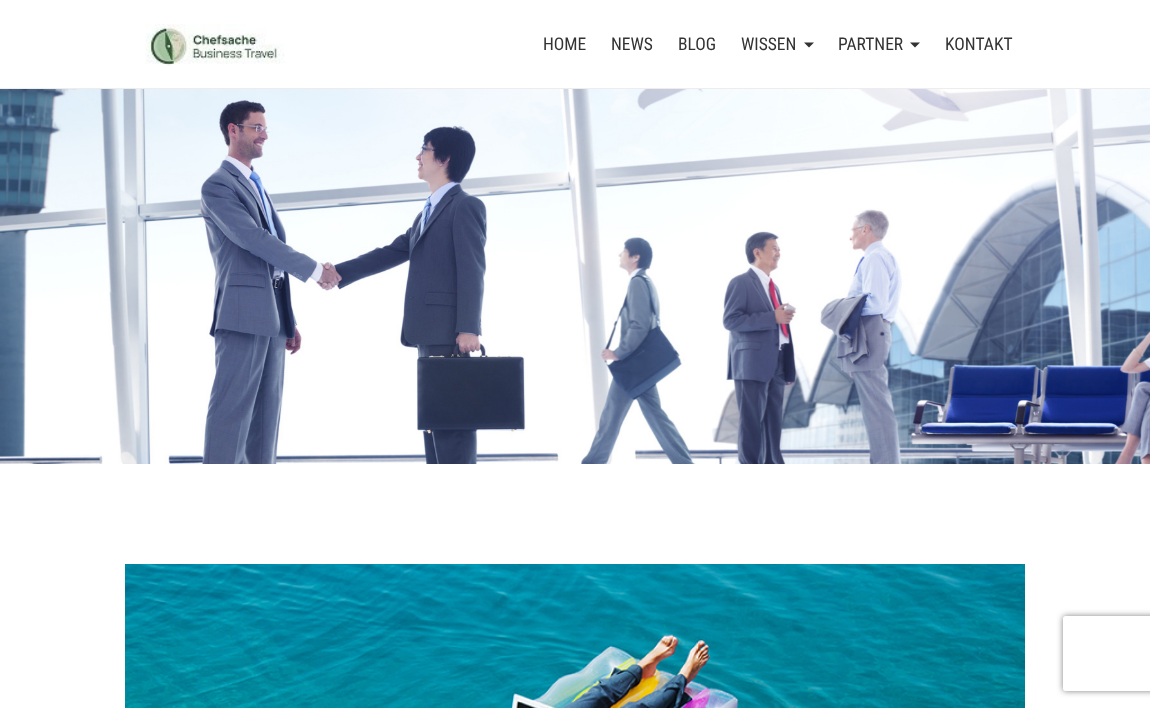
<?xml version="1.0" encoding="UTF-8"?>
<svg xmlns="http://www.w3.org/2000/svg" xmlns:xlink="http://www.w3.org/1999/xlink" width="1150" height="708">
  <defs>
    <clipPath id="clip1"><path d="M 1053 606 h 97 v 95 h -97 z m 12.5 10 h 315 c 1.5 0 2.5 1 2.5 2.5 v 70 c 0 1.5 -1 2.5 -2.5 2.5 h -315 c -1.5 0 -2.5 -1 -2.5 -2.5 v -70 c 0 -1.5 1 -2.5 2.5 -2.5 z" clip-rule="evenodd" /></clipPath>
  </defs>
  <rect width="100%" height="100%" fill="#ffffff" />
  <rect y="88" width="1150" height="1" fill="#ededed" />
  <image x="145" y="24" width="140" height="42" xlink:href="image1.png" />
  <path d="M 804 42.5 h 10 l -5 5 z" fill="#333333" />
  <path d="M 910 42.5 h 10 l -5 5 z" fill="#333333" />
  <image x="0" y="89" width="1150" height="375" xlink:href="image2.png" />
  <image x="125" y="564" width="900" height="144" xlink:href="image3.png" />
  <g clip-path="url(#clip1)">
    <rect x="1063" y="616" width="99" height="75" rx="2.5" fill="#808080" filter="blur(3px)" />
  </g>
  <text x="543" y="50" style="font-family: Roboto Condensed; font-size: 17.5px; fill: #333333">HOME</text>
  <text x="611" y="50" style="font-family: Roboto Condensed; font-size: 17.5px; fill: #333333">NEWS</text>
  <text x="678" y="50" style="font-family: Roboto Condensed; font-size: 17.5px; fill: #333333">BLOG</text>
  <text x="741" y="50" style="font-family: Roboto Condensed; font-size: 17.5px; fill: #333333">WISSEN</text>
  <text x="838" y="50" style="font-family: Roboto Condensed; font-size: 17.5px; fill: #333333">PARTNER</text>
  <text x="945" y="50" style="font-family: Roboto Condensed; font-size: 17.5px; fill: #333333">KONTAKT</text>
</svg>
